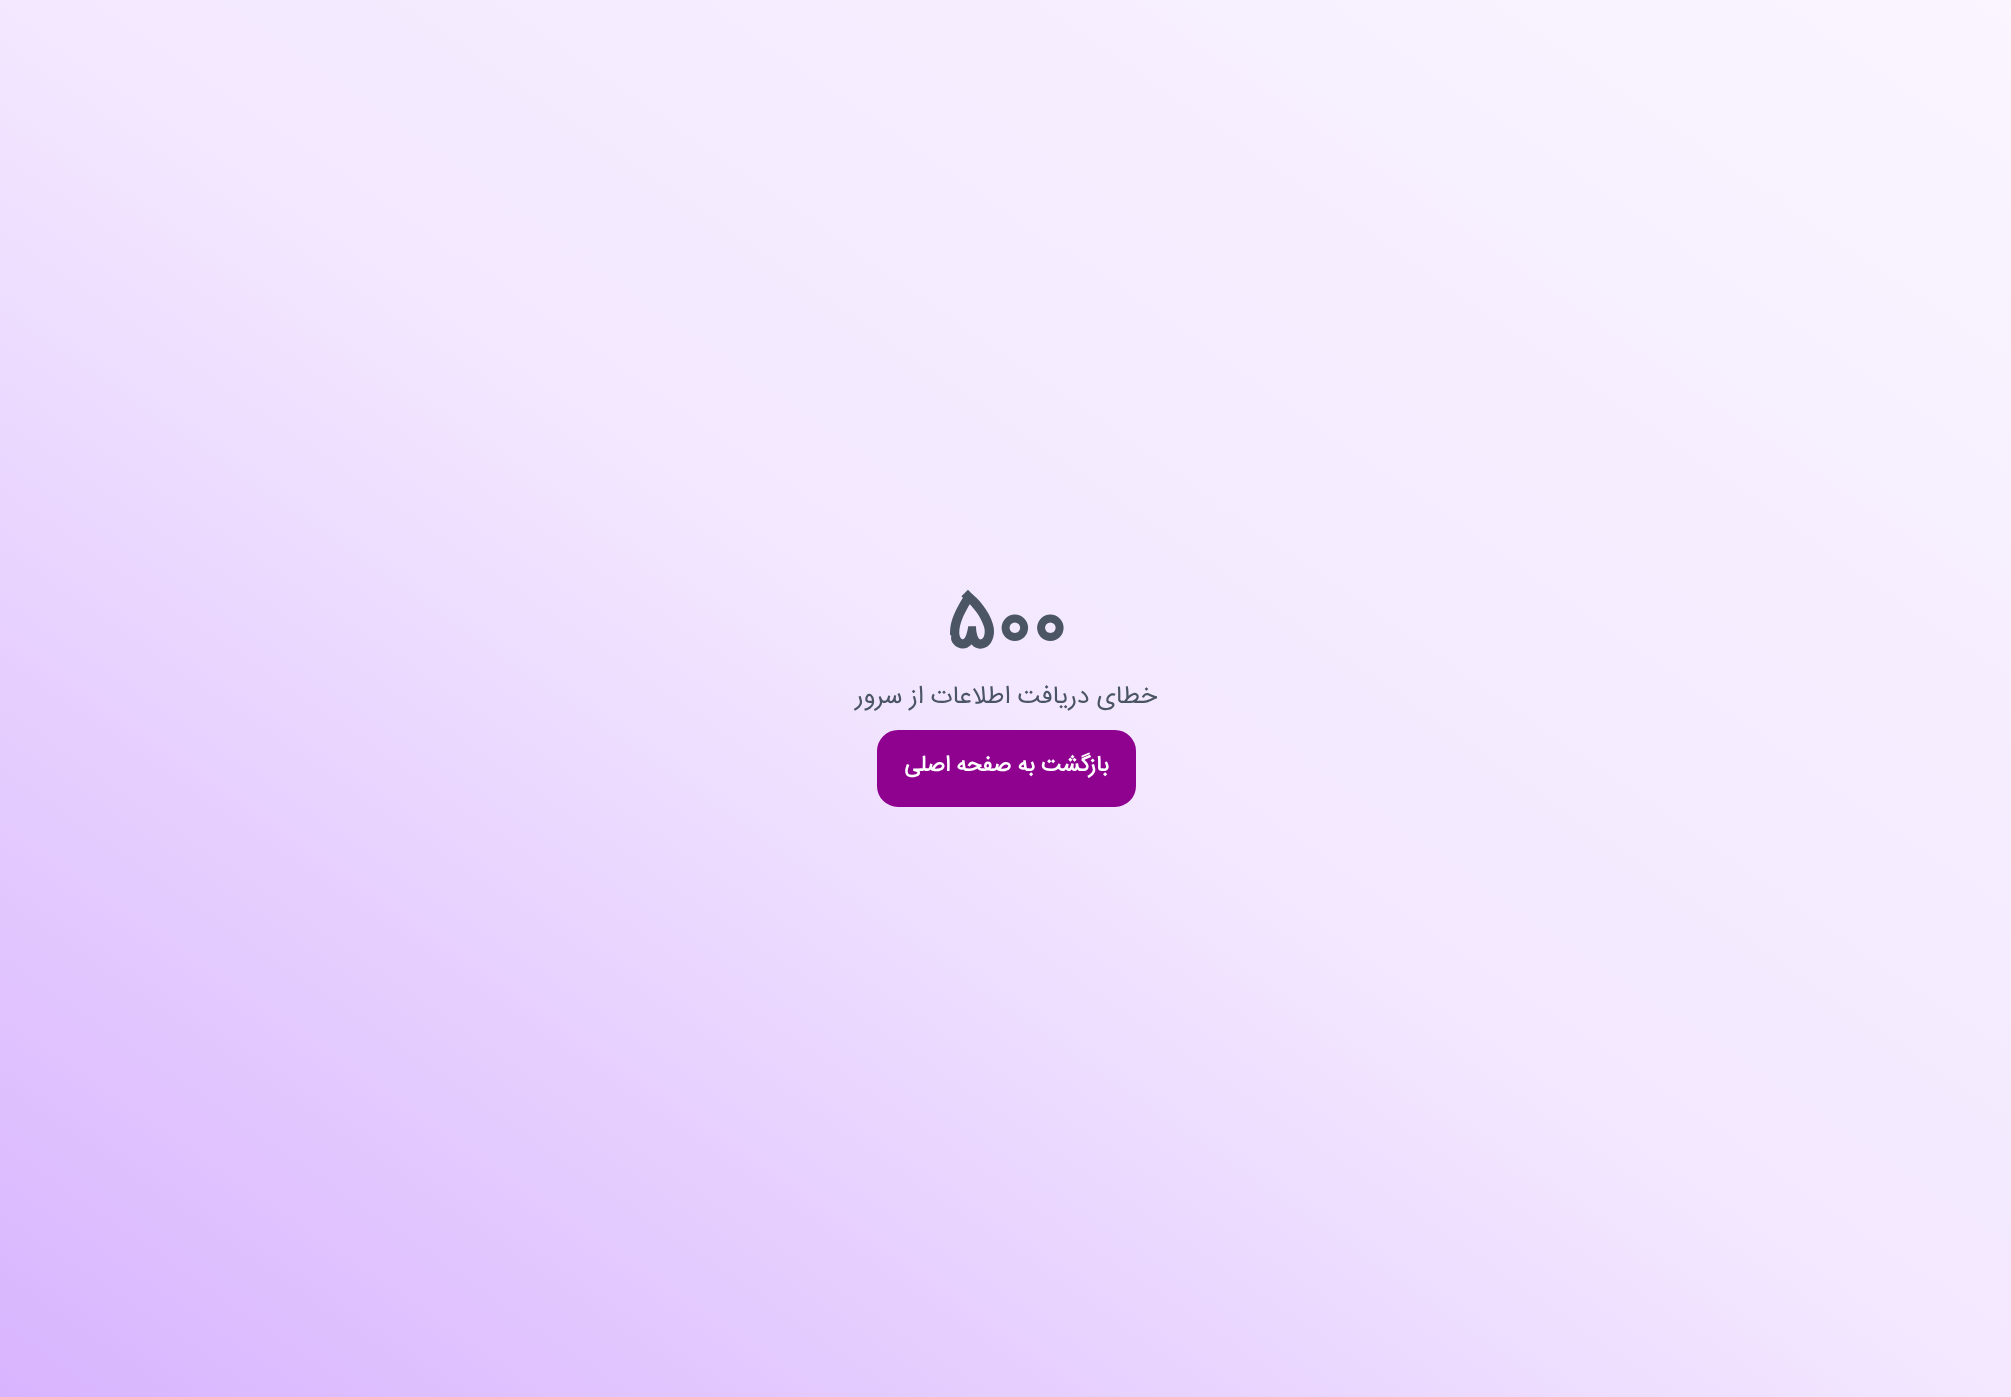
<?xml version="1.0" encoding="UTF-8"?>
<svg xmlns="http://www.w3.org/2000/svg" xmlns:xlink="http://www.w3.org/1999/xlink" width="2011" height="1397">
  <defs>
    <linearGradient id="g1" gradientUnits="userSpaceOnUse" x1="351" y1="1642" x2="1661" y2="-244"><stop offset="0" stop-color="#d8b4fe" /><stop offset="0.5" stop-color="#f3e8ff" /><stop offset="1" stop-color="#faf5ff" /></linearGradient>
  </defs>
  <rect width="100%" height="100%" fill="#ffffff" />
  <rect width="2011" height="1397" fill="url(#g1)" />
  <rect x="878" y="731" width="257" height="75" rx="20" fill="#8f018f" stroke="#8f018f" stroke-width="2" />
  <text x="946" y="646" style="font-family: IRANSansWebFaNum; font-size: 75px; font-weight: bold; fill: #4b5563">500</text>
  <text x="1157" y="703" style="font-family: IRANSansWebFaNum; font-size: 25.2px; direction: rtl; fill: #4b5563">خطای دریافت اطلاعات از سرور</text>
  <text x="1109" y="771" style="font-family: IRANSansWebFaNum; font-size: 22px; font-weight: bold; direction: rtl; fill: #ffffff">بازگشت به صفحه اصلی</text>
</svg>
